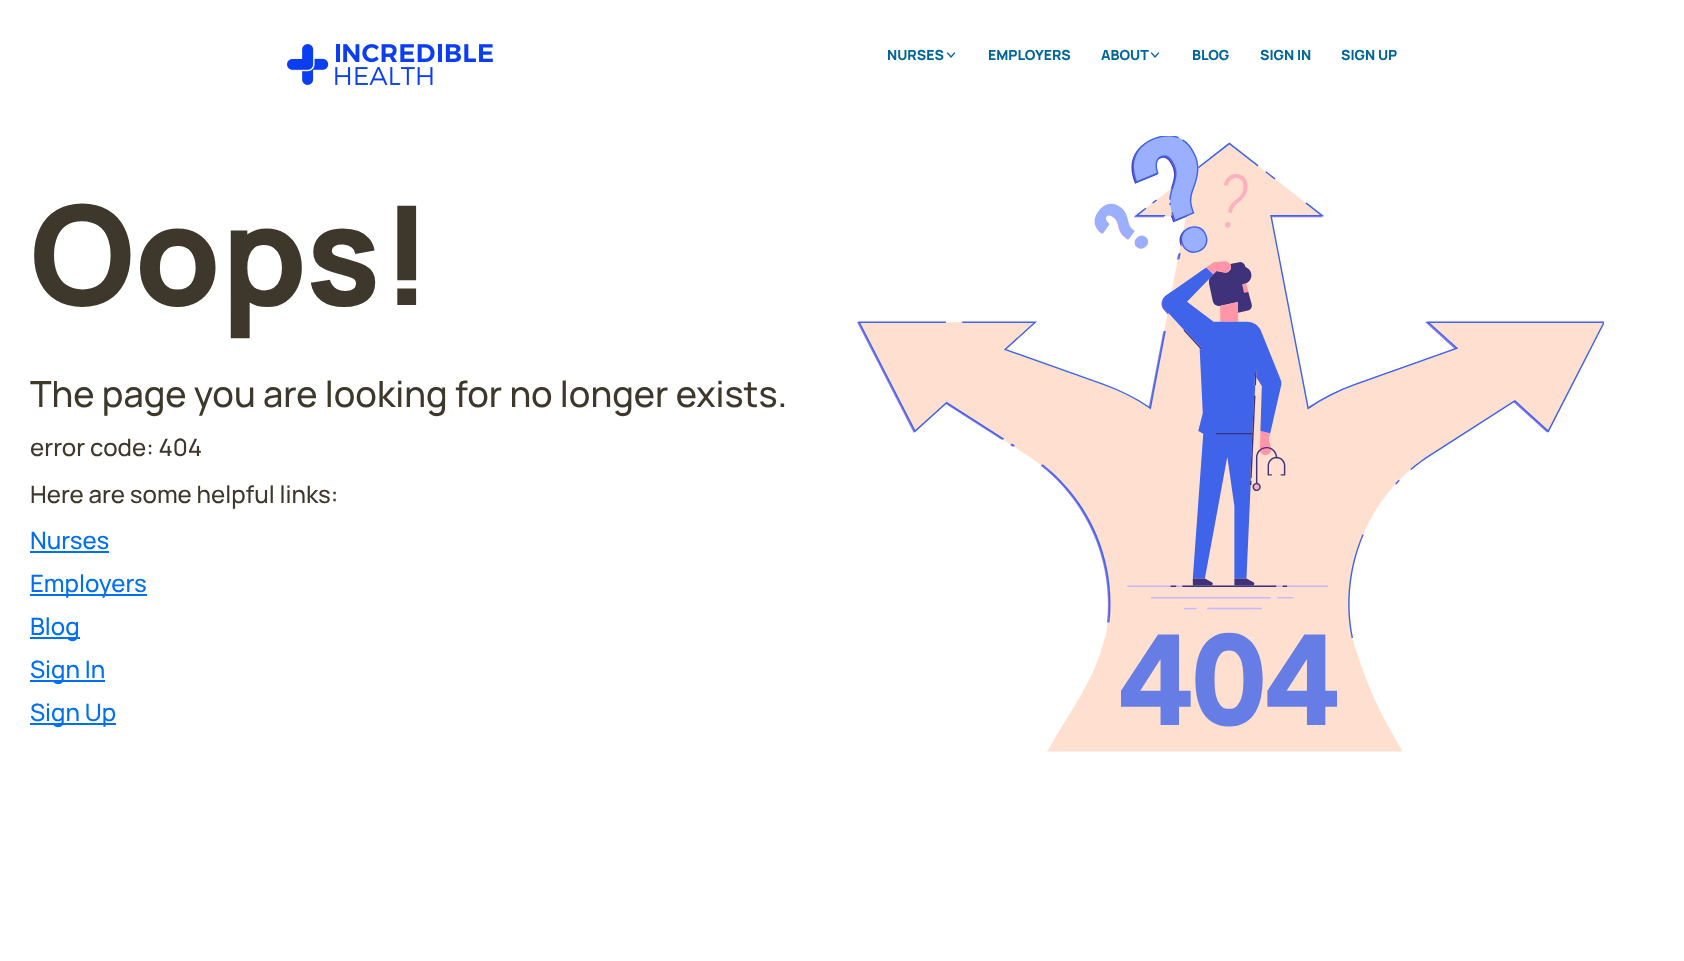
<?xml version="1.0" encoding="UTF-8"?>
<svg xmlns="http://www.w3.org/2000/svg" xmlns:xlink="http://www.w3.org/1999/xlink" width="1684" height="961">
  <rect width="100%" height="100%" fill="#ffffff" />
  <image x="287" y="44" width="206" height="41" xlink:href="image1.png" />
  <path d="M 947.5 53 l 3.5 4 l 3.5 -4" fill="none" stroke="#006699" stroke-width="1.2" stroke-linecap="round" stroke-linejoin="round" />
  <path d="M 1151.5 53 l 3.5 4 l 3.5 -4" fill="none" stroke="#006699" stroke-width="1.2" stroke-linecap="round" stroke-linejoin="round" />
  <rect x="30" y="551" width="79" height="2" fill="#006ff1" />
  <rect x="30" y="594" width="117" height="2" fill="#006ff1" />
  <rect x="30" y="637" width="50" height="2" fill="#006ff1" />
  <rect x="30" y="680" width="75" height="2" fill="#006ff1" />
  <rect x="30" y="723" width="86" height="2" fill="#006ff1" />
  <image x="857" y="136" width="747" height="616" xlink:href="image2.png" />
  <text x="887" y="60" style="font-family: Manrope; font-size: 14px; font-weight: 800; fill: #006699">NURSES</text>
  <text x="988" y="60" style="font-family: Manrope; font-size: 14px; font-weight: 800; fill: #006699">EMPLOYERS</text>
  <text x="1101" y="60" style="font-family: Manrope; font-size: 14px; font-weight: 800; fill: #006699">ABOUT</text>
  <text x="1192" y="60" style="font-family: Manrope; font-size: 14px; font-weight: 800; fill: #006699">BLOG</text>
  <text x="1260" y="60" style="font-family: Manrope; font-size: 14px; font-weight: 800; fill: #006699">SIGN IN</text>
  <text x="1341" y="60" style="font-family: Manrope; font-size: 14px; font-weight: 800; fill: #006699">SIGN UP</text>
  <text x="30" y="305" style="font-family: Manrope; font-size: 138px; font-weight: 800; fill: #3d382b">Oops!</text>
  <text x="30" y="407" style="font-family: Manrope; font-size: 36px; font-weight: 500; fill: #3d382b">The page you are looking for no longer exists.</text>
  <text x="30" y="456" style="font-family: Manrope; font-size: 24px; font-weight: 500; fill: #3d382b">error code: 404</text>
  <text x="30" y="503" style="font-family: Manrope; font-size: 24px; font-weight: 500; fill: #3d382b">Here are some helpful links:</text>
  <text x="30" y="549" style="font-family: Manrope; font-size: 24px; font-weight: 500; fill: #006ff1">Nurses</text>
  <text x="30" y="592" style="font-family: Manrope; font-size: 24px; font-weight: 500; fill: #006ff1">Employers</text>
  <text x="30" y="635" style="font-family: Manrope; font-size: 24px; font-weight: 500; fill: #006ff1">Blog</text>
  <text x="30" y="678" style="font-family: Manrope; font-size: 24px; font-weight: 500; fill: #006ff1">Sign In</text>
  <text x="30" y="721" style="font-family: Manrope; font-size: 24px; font-weight: 500; fill: #006ff1">Sign Up</text>
</svg>
